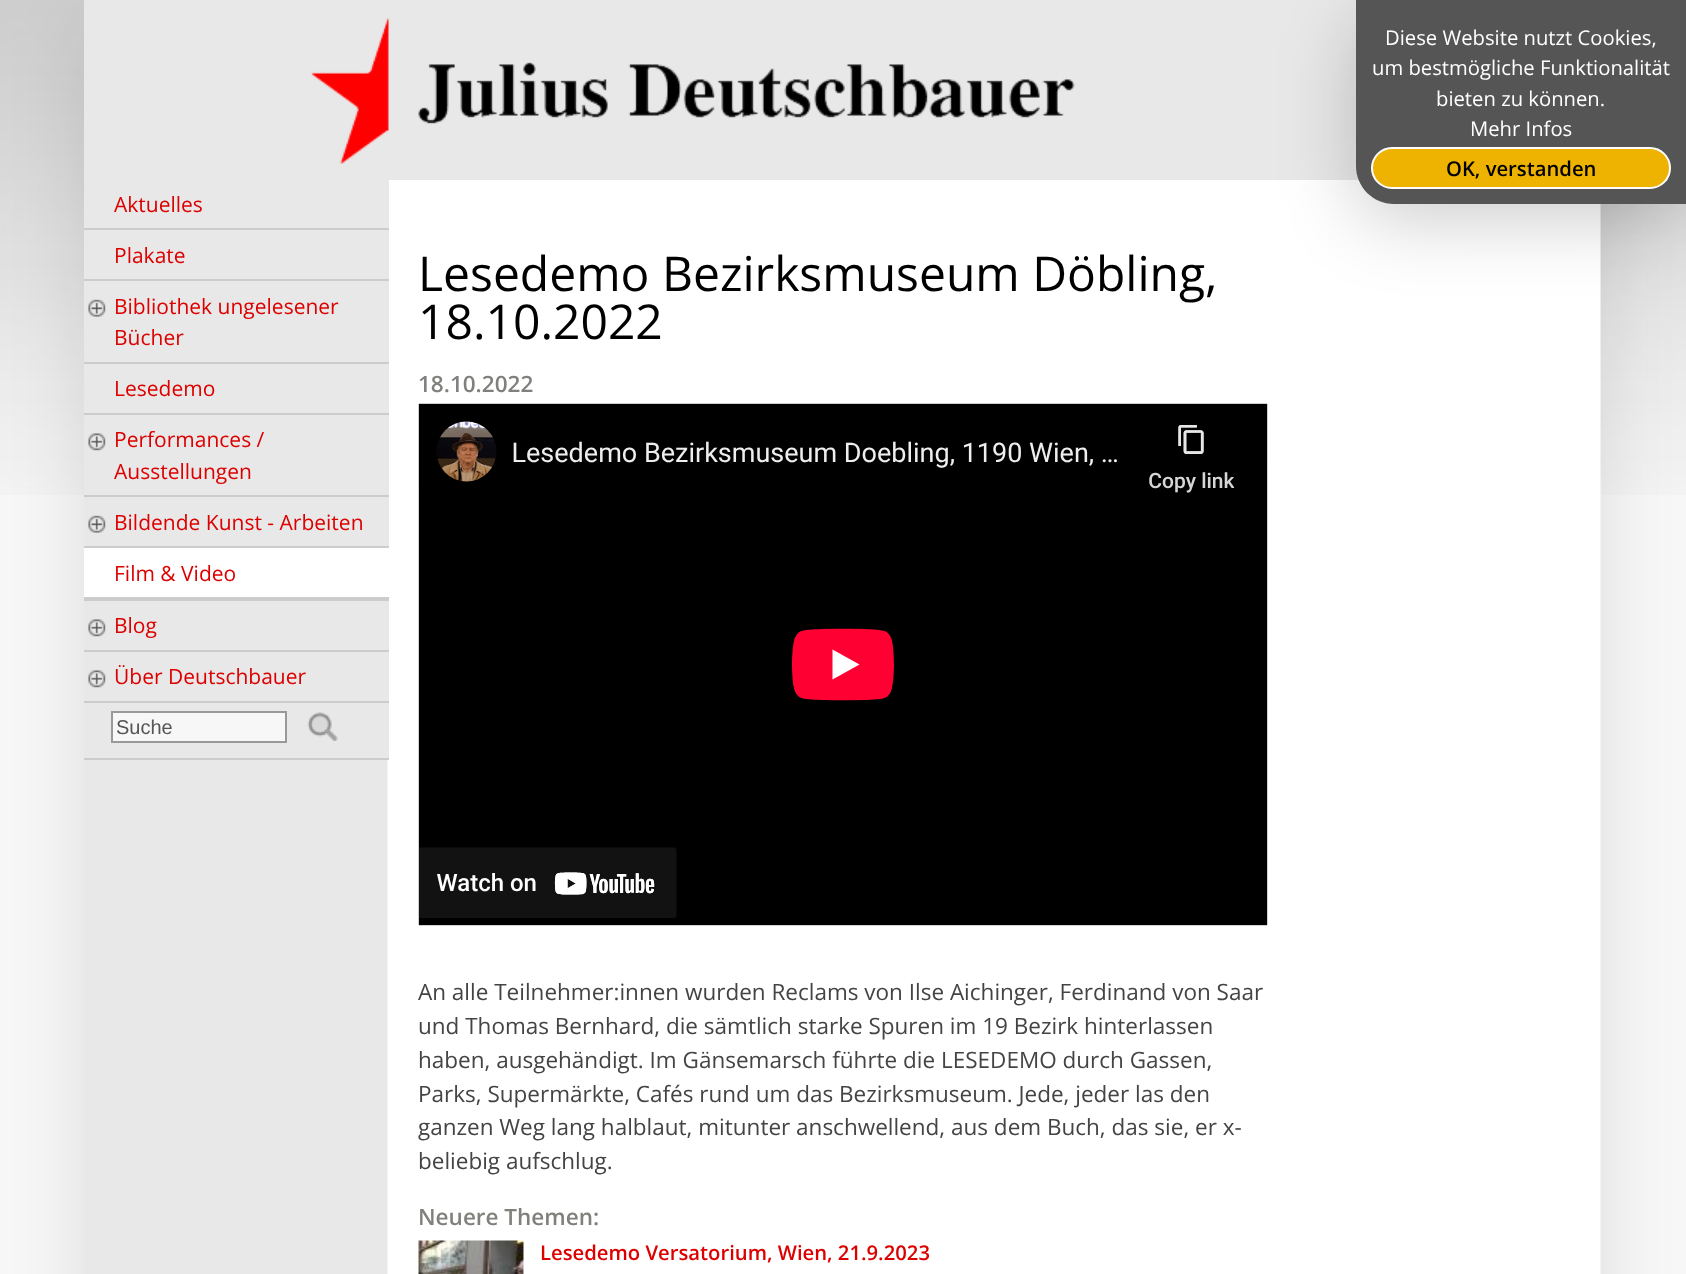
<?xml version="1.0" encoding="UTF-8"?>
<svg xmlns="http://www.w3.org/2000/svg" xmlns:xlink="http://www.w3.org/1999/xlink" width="1686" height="1274">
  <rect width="100%" height="100%" fill="#f7f7f7" />
  <image x="0" y="0" width="1686" height="495" xlink:href="image1.png" />
  <rect x="84" y="30" width="1518" height="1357" fill="#000000" fill-opacity="0.1" filter="blur(37.5px)" />
  <image x="84" y="180" width="1517" height="1094" xlink:href="image2.png" />
  <rect x="389" width="970" height="180" fill="#e8e8e8" />
  <rect x="1356" y="15" width="330" height="204" rx="38" fill="#000000" fill-opacity="0.2" filter="blur(37.5px)" />
  <path d="M 1356 0 h 330 v 204 h -292 c -21 0 -38 -17 -38 -38 z" fill="#555555" />
  <rect x="1372" y="148" width="298" height="40" rx="20" fill="#eeb300" stroke="#ffffff" stroke-width="2" />
  <rect x="84" width="305" height="758" fill="#e8e8e8" />
  <image x="311" y="17" width="78" height="147" xlink:href="image3.png" />
  <rect x="84" y="228" width="305" height="2" fill="#cccccc" />
  <rect x="84" y="279" width="305" height="2" fill="#cccccc" />
  <rect x="84" y="362" width="305" height="2" fill="#cccccc" />
  <image x="88" y="299" width="18" height="18" xlink:href="image4.png" />
  <rect x="84" y="413" width="305" height="2" fill="#cccccc" />
  <rect x="84" y="495" width="305" height="2" fill="#cccccc" />
  <image x="88" y="433" width="18" height="18" xlink:href="image5.png" />
  <rect x="84" y="546" width="305" height="2" fill="#cccccc" />
  <image x="88" y="515" width="18" height="18" xlink:href="image4.png" />
  <rect x="84" y="597" width="305" height="4" fill="#cccccc" />
  <rect x="84" y="548" width="305" height="49" fill="#ffffff" />
  <rect x="84" y="650" width="305" height="2" fill="#cccccc" />
  <image x="88" y="619" width="18" height="18" xlink:href="image5.png" />
  <rect x="84" y="701" width="305" height="2" fill="#cccccc" />
  <image x="88" y="670" width="18" height="18" xlink:href="image5.png" />
  <rect x="84" y="758" width="305" height="2" fill="#cccccc" />
  <rect x="112" y="712" width="174" height="30" fill="#f7f7f7" stroke="#999999" stroke-width="2" />
  <image x="307" y="712" width="31" height="29" xlink:href="image6.png" />
  <image x="418" y="62" width="657" height="62" xlink:href="image7.png" />
  <image x="418" y="403" width="850" height="523" xlink:href="image8.png" />
  <image x="418" y="1240" width="106" height="34" xlink:href="image9.png" />
  <text x="1385" y="45" style="font-family: Open Sans; font-size: 20.25px; fill: #ffffff">Diese Website nutzt Cookies,</text>
  <text x="1372" y="75" style="font-family: Open Sans; font-size: 20.25px; fill: #ffffff">um bestmögliche Funktionalität</text>
  <text x="1436" y="106" style="font-family: Open Sans; font-size: 20.25px; fill: #ffffff">bieten zu können.</text>
  <text x="1470" y="136" style="font-family: Open Sans; font-size: 20.25px; fill: #ffffff">Mehr Infos</text>
  <text x="1446" y="176" style="font-family: Open Sans; font-size: 20.25px; font-weight: 600; fill: #000000">OK, verstanden</text>
  <text x="114" y="212" style="font-family: Open Sans; font-size: 21px; fill: #dd0000">Aktuelles</text>
  <text x="114" y="263" style="font-family: Open Sans; font-size: 21px; fill: #dd0000">Plakate</text>
  <text x="114" y="314" style="font-family: Open Sans; font-size: 21px; fill: #dd0000">Bibliothek ungelesener</text>
  <text x="114" y="345" style="font-family: Open Sans; font-size: 21px; fill: #dd0000">Bücher</text>
  <text x="114" y="396" style="font-family: Open Sans; font-size: 21px; fill: #dd0000">Lesedemo</text>
  <text x="114" y="447" style="font-family: Open Sans; font-size: 21px; fill: #dd0000">Performances /</text>
  <text x="114" y="479" style="font-family: Open Sans; font-size: 21px; fill: #dd0000">Ausstellungen</text>
  <text x="114" y="530" style="font-family: Open Sans; font-size: 21px; fill: #dd0000">Bildende Kunst - Arbeiten</text>
  <text x="114" y="581" style="font-family: Open Sans; font-size: 21px; fill: #dd0000">Film &amp; Video</text>
  <text x="114" y="633" style="font-family: Open Sans; font-size: 21px; fill: #dd0000">Blog</text>
  <text x="114" y="684" style="font-family: Open Sans; font-size: 21px; fill: #dd0000">Über Deutschbauer</text>
  <text x="116" y="734" style="font-family: Liberation Sans; font-size: 20px; fill: #555555">Suche</text>
  <text x="418" y="291" style="font-family: Open Sans; font-size: 48px; fill: #000000">Lesedemo Bezirksmuseum Döbling,</text>
  <text x="418" y="339" style="font-family: Open Sans; font-size: 48px; fill: #000000">18.10.2022</text>
  <text x="418" y="392" style="font-family: Open Sans; font-size: 22.5px; font-weight: 600; fill: #80807d">18.10.2022</text>
  <text x="418" y="1000" style="font-family: Open Sans; font-size: 22.5px; fill: #444444">An alle Teilnehmer:innen wurden Reclams von Ilse Aichinger, Ferdinand von Saar</text>
  <text x="418" y="1034" style="font-family: Open Sans; font-size: 22.5px; fill: #444444">und Thomas Bernhard, die sämtlich starke Spuren im 19 Bezirk hinterlassen</text>
  <text x="418" y="1068" style="font-family: Open Sans; font-size: 22.5px; fill: #444444">haben, ausgehändigt. Im Gänsemarsch führte die LESEDEMO durch Gassen,</text>
  <text x="418" y="1102" style="font-family: Open Sans; font-size: 22.5px; fill: #444444">Parks, Supermärkte, Cafés rund um das Bezirksmuseum. Jede, jeder las den</text>
  <text x="418" y="1135" style="font-family: Open Sans; font-size: 22.5px; fill: #444444">ganzen Weg lang halblaut, mitunter anschwellend, aus dem Buch, das sie, er x-</text>
  <text x="418" y="1169" style="font-family: Open Sans; font-size: 22.5px; fill: #444444">beliebig aufschlug.</text>
  <text x="418" y="1225" style="font-family: Open Sans; font-size: 22.5px; font-weight: 600; fill: #80807d">Neuere Themen:</text>
  <text x="540" y="1260" style="font-family: Open Sans; font-size: 20.25px; font-weight: 600; fill: #dd0000">Lesedemo Versatorium, Wien, 21.9.2023</text>
</svg>
